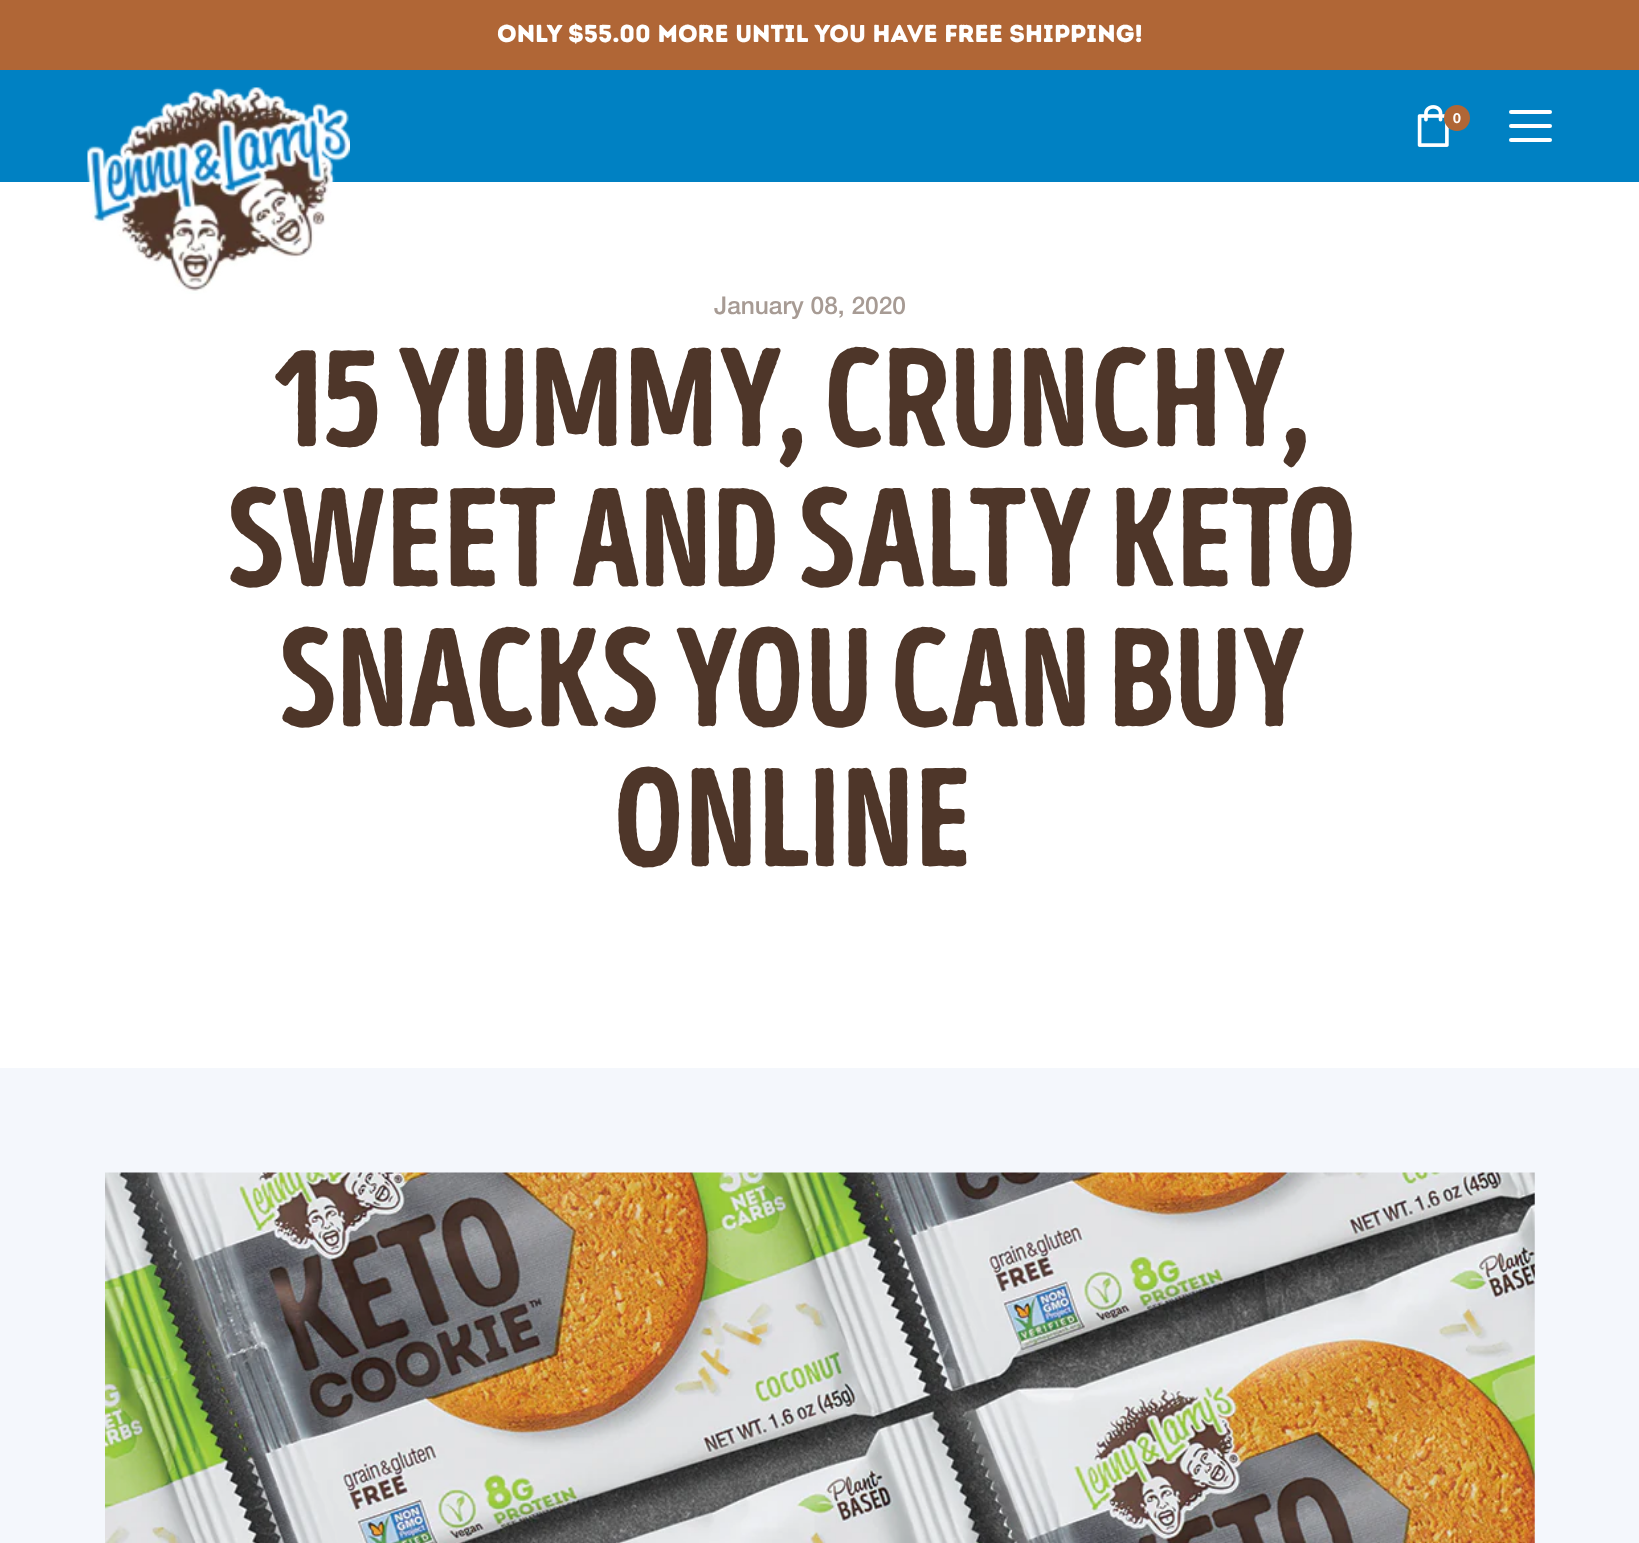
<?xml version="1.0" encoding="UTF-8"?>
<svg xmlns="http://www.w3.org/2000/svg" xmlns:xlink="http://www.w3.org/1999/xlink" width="1639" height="1543">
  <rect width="100%" height="100%" fill="#f4f7fc" />
  <rect width="1639" height="70" fill="#b06636" />
  <rect y="70" width="1639" height="112" fill="#0081c3" />
  <rect y="182" width="1639" height="886" fill="#ffffff" />
  <image x="87" y="87" width="263" height="207" xlink:href="image1.png" />
  <image x="1417" y="105" width="32" height="42" xlink:href="image2.png" />
  <circle cx="1457" cy="118" r="13" fill="#b06636" />
  <rect x="1509" y="110" width="43" height="4" rx="2" fill="#ffffff" />
  <rect x="1509" y="124" width="43" height="4" rx="2" fill="#ffffff" />
  <rect x="1509" y="138" width="43" height="4" rx="2" fill="#ffffff" />
  <image x="105" y="1172" width="1430" height="371" xlink:href="image3.png" />
  <text x="497" y="42" style="font-family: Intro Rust; font-size: 24.5px; fill: #ffffff">ONLY $55.00 MORE UNTIL YOU HAVE FREE SHIPPING!</text>
  <text x="1453" y="123" style="font-family: Helvetica Neue; font-size: 14px; font-weight: bold; fill: #ffffff">0</text>
  <text x="714" y="314" style="font-family: Helvetica Neue; font-size: 24.5px; font-weight: 500; fill: #a79b94">January 08, 2020</text>
  <text x="273" y="446" style="font-family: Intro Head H; font-size: 140px; fill: #4e3629">15 YUMMY, CRUNCHY,</text>
  <text x="226" y="586" style="font-family: Intro Head H; font-size: 140px; fill: #4e3629">SWEET AND SALTY KETO</text>
  <text x="278" y="726" style="font-family: Intro Head H; font-size: 140px; fill: #4e3629">SNACKS YOU CAN BUY</text>
  <text x="613" y="866" style="font-family: Intro Head H; font-size: 140px; fill: #4e3629">ONLINE</text>
</svg>
